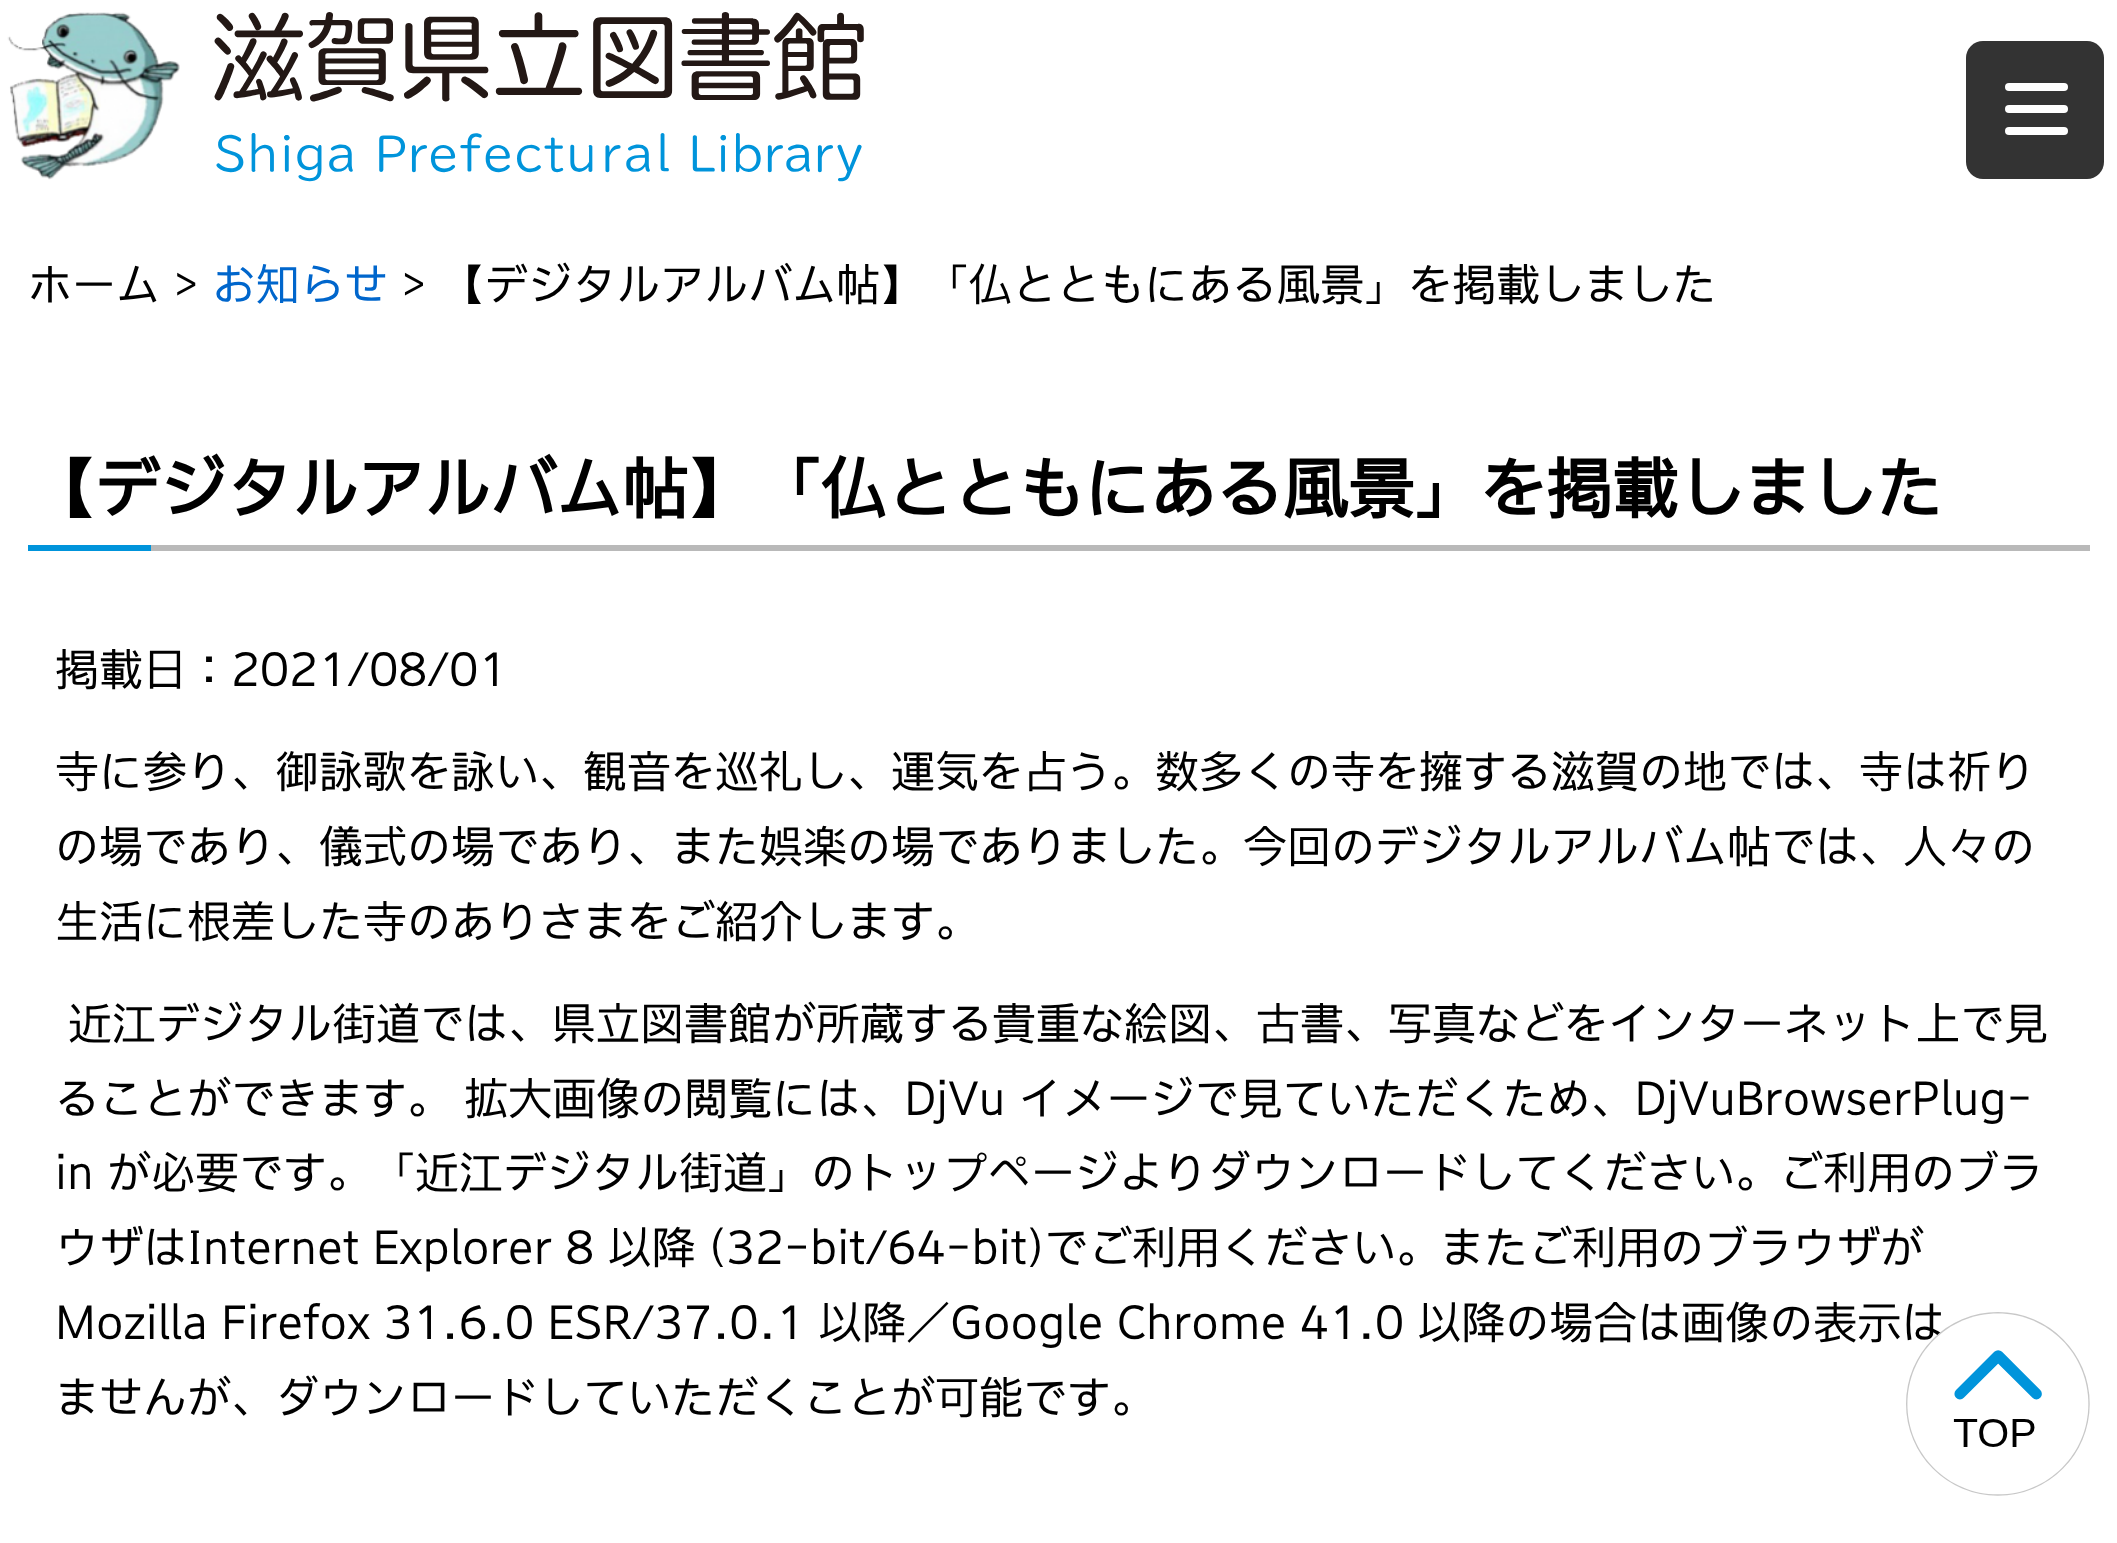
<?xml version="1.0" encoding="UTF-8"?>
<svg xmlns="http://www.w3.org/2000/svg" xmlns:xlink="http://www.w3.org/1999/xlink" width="2117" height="1543">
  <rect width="100%" height="100%" fill="#ffffff" />
  <image x="7" y="12" width="173" height="168" xlink:href="image1.png" />
  <image x="214" y="12" width="650" height="170" xlink:href="image2.png" />
  <rect x="1966" y="41" width="138" height="138" rx="17" fill="#333333" />
  <rect x="2005" y="83" width="63" height="8" rx="4" fill="#ffffff" />
  <rect x="2005" y="105" width="63" height="8" rx="4" fill="#ffffff" />
  <rect x="2005" y="127" width="63" height="8" rx="4" fill="#ffffff" />
  <rect x="151" y="545" width="1939" height="6" fill="#b9b9b9" />
  <rect x="28" y="545" width="123" height="6" fill="#0094db" />
  <text x="28" y="300" style="font-family: 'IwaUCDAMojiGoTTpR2'; font-size: 44px; fill: #000000">ホーム &gt;</text>
  <text x="212" y="300" style="font-family: 'IwaUCDAMojiGoTTpR2'; font-size: 44px; fill: #0066cc">お知らせ</text>
  <text x="401" y="300" style="font-family: 'IwaUCDAMojiGoTTpR2'; font-size: 44px; fill: #000000">&gt; 【デジタルアルバム帖】「仏とともにある風景」を掲載しました</text>
  <text x="28" y="512" style="font-family: 'IwaUCDAMojiGoTTpR2'; font-size: 66px; font-weight: bold; fill: #000000">【デジタルアルバム帖】「仏とともにある風景」を掲載しました</text>
  <text x="55" y="685" style="font-family: 'IwaUCDAMojiGoTTpR2'; font-size: 44px; fill: #000000">掲載日：2021/08/01</text>
  <text x="55" y="787" style="font-family: 'IwaUCDAMojiGoTTpR2'; font-size: 44px; fill: #000000">寺に参り、御詠歌を詠い、観音を巡礼し、運気を占う。数多くの寺を擁する滋賀の地では、寺は祈り</text>
  <text x="55" y="862" style="font-family: 'IwaUCDAMojiGoTTpR2'; font-size: 44px; fill: #000000">の場であり、儀式の場であり、また娯楽の場でありました。今回のデジタルアルバム帖では、人々の</text>
  <text x="55" y="937" style="font-family: 'IwaUCDAMojiGoTTpR2'; font-size: 44px; fill: #000000">生活に根差した寺のありさまをご紹介します。</text>
  <text x="68" y="1039" style="font-family: 'IwaUCDAMojiGoTTpR2'; font-size: 44px; fill: #000000">近江デジタル街道では、県立図書館が所蔵する貴重な絵図、古書、写真などをインターネット上で見</text>
  <text x="55" y="1114" style="font-family: 'IwaUCDAMojiGoTTpR2'; font-size: 44px; fill: #000000">ることができます。 拡大画像の閲覧には、DjVu イメージで見ていただくため、DjVuBrowserPlug-</text>
  <text x="55" y="1188" style="font-family: 'IwaUCDAMojiGoTTpR2'; font-size: 44px; fill: #000000">in が必要です。「近江デジタル街道」のトップページよりダウンロードしてください。ご利用のブラ</text>
  <text x="55" y="1263" style="font-family: 'IwaUCDAMojiGoTTpR2'; font-size: 44px; fill: #000000">ウザはInternet Explorer 8 以降 (32-bit/64-bit)でご利用ください。またご利用のブラウザが</text>
  <text x="55" y="1338" style="font-family: 'IwaUCDAMojiGoTTpR2'; font-size: 44px; fill: #000000">Mozilla Firefox 31.6.0 ESR/37.0.1 以降／Google Chrome 41.0 以降の場合は画像の表示は</text>
  <text x="55" y="1413" style="font-family: 'IwaUCDAMojiGoTTpR2'; font-size: 44px; fill: #000000">ませんが、ダウンロードしていただくことが可能です。</text>
  <image x="1906" y="1312" width="184" height="184" xlink:href="image3.png" />
</svg>
